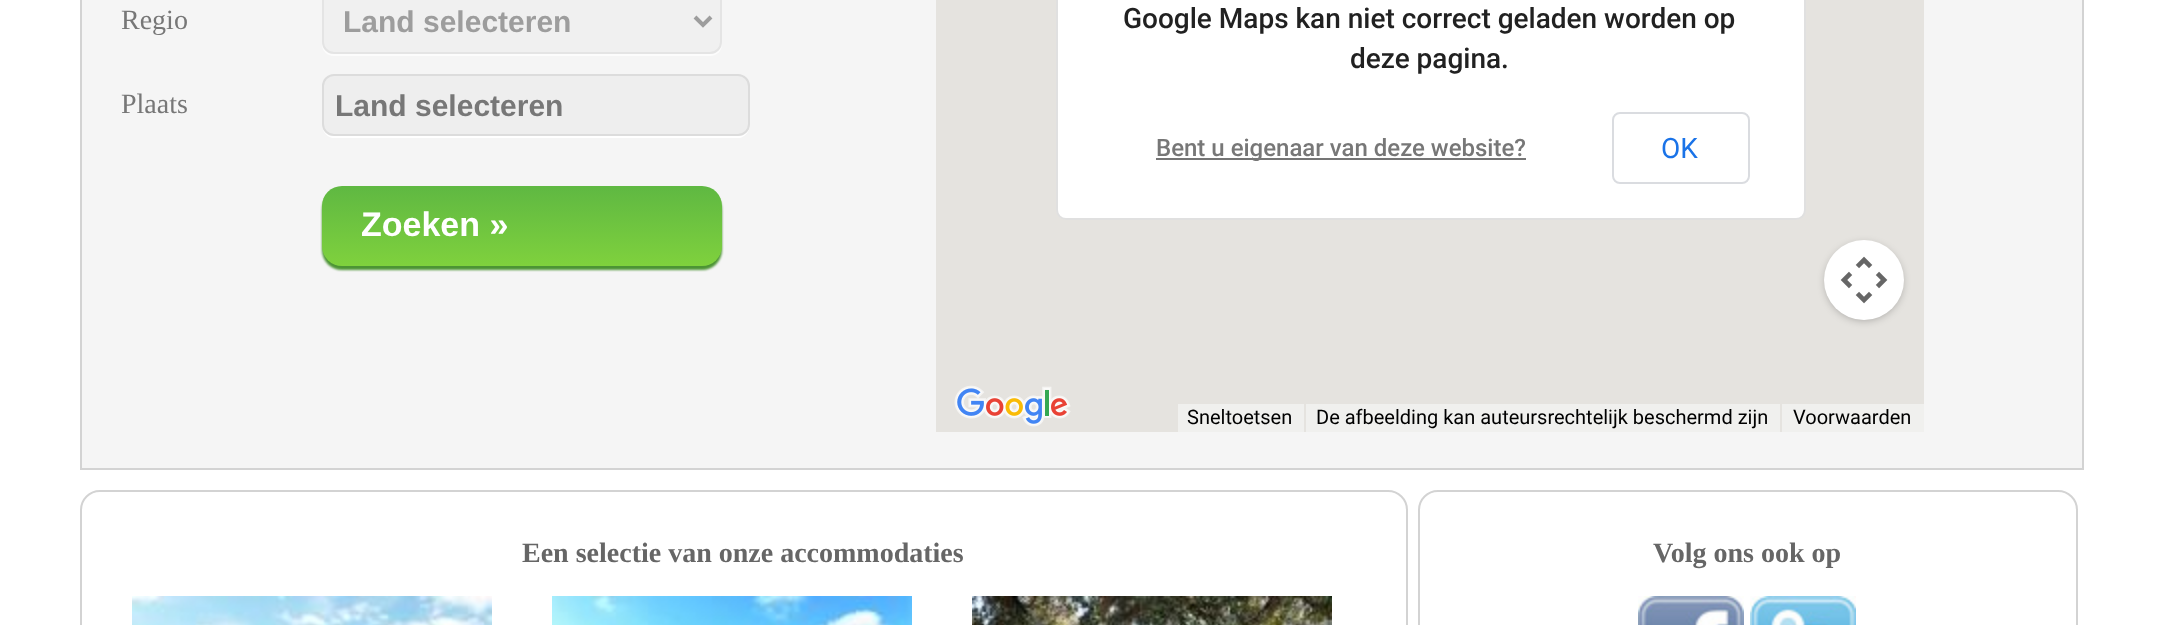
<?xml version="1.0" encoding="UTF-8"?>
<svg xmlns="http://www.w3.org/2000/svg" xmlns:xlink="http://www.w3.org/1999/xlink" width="2157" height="625">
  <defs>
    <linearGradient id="g1" gradientUnits="userSpaceOnUse" x1="322" y1="186" x2="322" y2="266"><stop offset="0" stop-color="#5fb842" /><stop offset="1" stop-color="#7fd13d" /></linearGradient>
  </defs>
  <rect width="100%" height="100%" fill="#ffffff" />
  <rect x="82" width="2000" height="468" fill="#f5f5f5" />
  <rect x="2082" width="2" height="470" fill="#d3d3d3" />
  <rect x="80" y="468" width="2004" height="2" fill="#d3d3d3" />
  <rect x="80" width="2" height="470" fill="#d3d3d3" />
  <path d="M 322 42 v 2 c 0 7 5 12 12 12 h 376 c 7 0 12 -5 12 -12 v -2 c 0 7 -5 12 -12 12 h -376 c -7 0 -12 -5 -12 -12 z" fill="#fcfcfc" />
  <rect x="323" y="-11" width="398" height="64" rx="11" fill="#f0f0f0" stroke="#e4e4e4" stroke-width="2" />
  <path d="M 695 17 l 8 8 l 8 -8" fill="none" stroke="#9d9d9d" stroke-width="4" />
  <path d="M 322 124 c 0 6 3 12 10 14 h 408 c 7 -2 10 -8 10 -14 c 0 7 -5 12 -12 12 h -404 c -7 0 -12 -5 -12 -12 z" fill="#ffffff" />
  <rect x="323" y="75" width="426" height="60" rx="11" fill="#eeeeee" stroke="#dcdcdc" stroke-width="2" />
  <rect x="322" y="190" width="400" height="80" rx="20" fill="#4c9434" filter="blur(1px)" />
  <rect x="322" y="186" width="400" height="80" rx="20" fill="url(#g1)" />
  <rect x="936" width="988" height="432" fill="#e5e3df" />
  <rect x="1056" y="-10" width="750" height="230" rx="10" fill="#ffffff" />
  <rect x="1057" y="-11" width="748" height="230" rx="9" fill="none" stroke="#000000" stroke-opacity="0.12" stroke-width="2" />
  <rect x="1156" y="158" width="370" height="2" fill="#757575" />
  <rect x="1613" y="113" width="136" height="70" rx="7" fill="none" stroke="#dadce0" stroke-width="2" />
  <rect x="1826" y="244" width="76" height="76" rx="38" fill="#000000" fill-opacity="0.3" filter="blur(4px)" />
  <circle cx="1864" cy="280" r="40" fill="#ffffff" />
  <image x="1840" y="256" width="48" height="48" xlink:href="image1.png" />
  <image x="954" y="385" width="117" height="42" xlink:href="image2.png" />
  <rect x="1178" y="404" width="126" height="28" fill="#f0f0ee" />
  <rect x="1306" y="404" width="474" height="28" fill="#f0f0ee" />
  <rect x="1782" y="404" width="142" height="28" fill="#f0f0ee" />
  <rect x="81" y="491" width="1326" height="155" rx="19" fill="none" stroke="#d3d3d3" stroke-width="2" />
  <image x="132" y="596" width="360" height="29" xlink:href="image3.png" />
  <image x="552" y="596" width="360" height="29" xlink:href="image4.png" />
  <image x="972" y="596" width="360" height="29" xlink:href="image5.png" />
  <rect x="1419" y="491" width="658" height="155" rx="19" fill="none" stroke="#d3d3d3" stroke-width="2" />
  <image x="1638" y="596" width="106" height="29" xlink:href="image6.png" />
  <image x="1750" y="596" width="106" height="29" xlink:href="image7.png" />
  <text x="121" y="29" style="font-family: Liberation Serif; font-size: 28px; fill: #777777">Regio</text>
  <text x="343" y="32" style="font-family: Liberation Sans; font-size: 30px; font-weight: bold; fill: #9d9d9d">Land selecteren</text>
  <text x="121" y="113" style="font-family: Liberation Serif; font-size: 28px; fill: #777777">Plaats</text>
  <text x="335" y="116" style="font-family: Liberation Sans; font-size: 30px; font-weight: bold; fill: #777777">Land selecteren</text>
  <text x="361" y="236" style="font-family: Liberation Sans; font-size: 34px; font-weight: bold; fill: #ffffff">Zoeken »</text>
  <text x="1123" y="28" style="font-family: Roboto; font-size: 28px; font-weight: 500; fill: #212121">Google Maps kan niet correct geladen worden op</text>
  <text x="1350" y="68" style="font-family: Roboto; font-size: 28px; font-weight: 500; fill: #212121">deze pagina.</text>
  <text x="1156" y="156" style="font-family: Roboto; font-size: 24px; font-weight: 500; fill: #777777">Bent u eigenaar van deze website?</text>
  <text x="1661" y="158" style="font-family: Roboto; font-size: 28px; fill: #1a73e8">OK</text>
  <text x="1187" y="424" style="font-family: Roboto; font-size: 20px; fill: #000000">Sneltoetsen</text>
  <text x="1316" y="424" style="font-family: Roboto; font-size: 20px; fill: #000000">De afbeelding kan auteursrechtelijk beschermd zijn</text>
  <text x="1793" y="424" style="font-family: Roboto; font-size: 20px; fill: #000000">Voorwaarden</text>
  <text x="522" y="562" style="font-family: Liberation Serif; font-size: 28px; font-weight: bold; fill: #666666">Een selectie van onze accommodaties</text>
  <text x="1653" y="562" style="font-family: Liberation Serif; font-size: 28px; font-weight: bold; fill: #666666">Volg ons ook op</text>
</svg>
